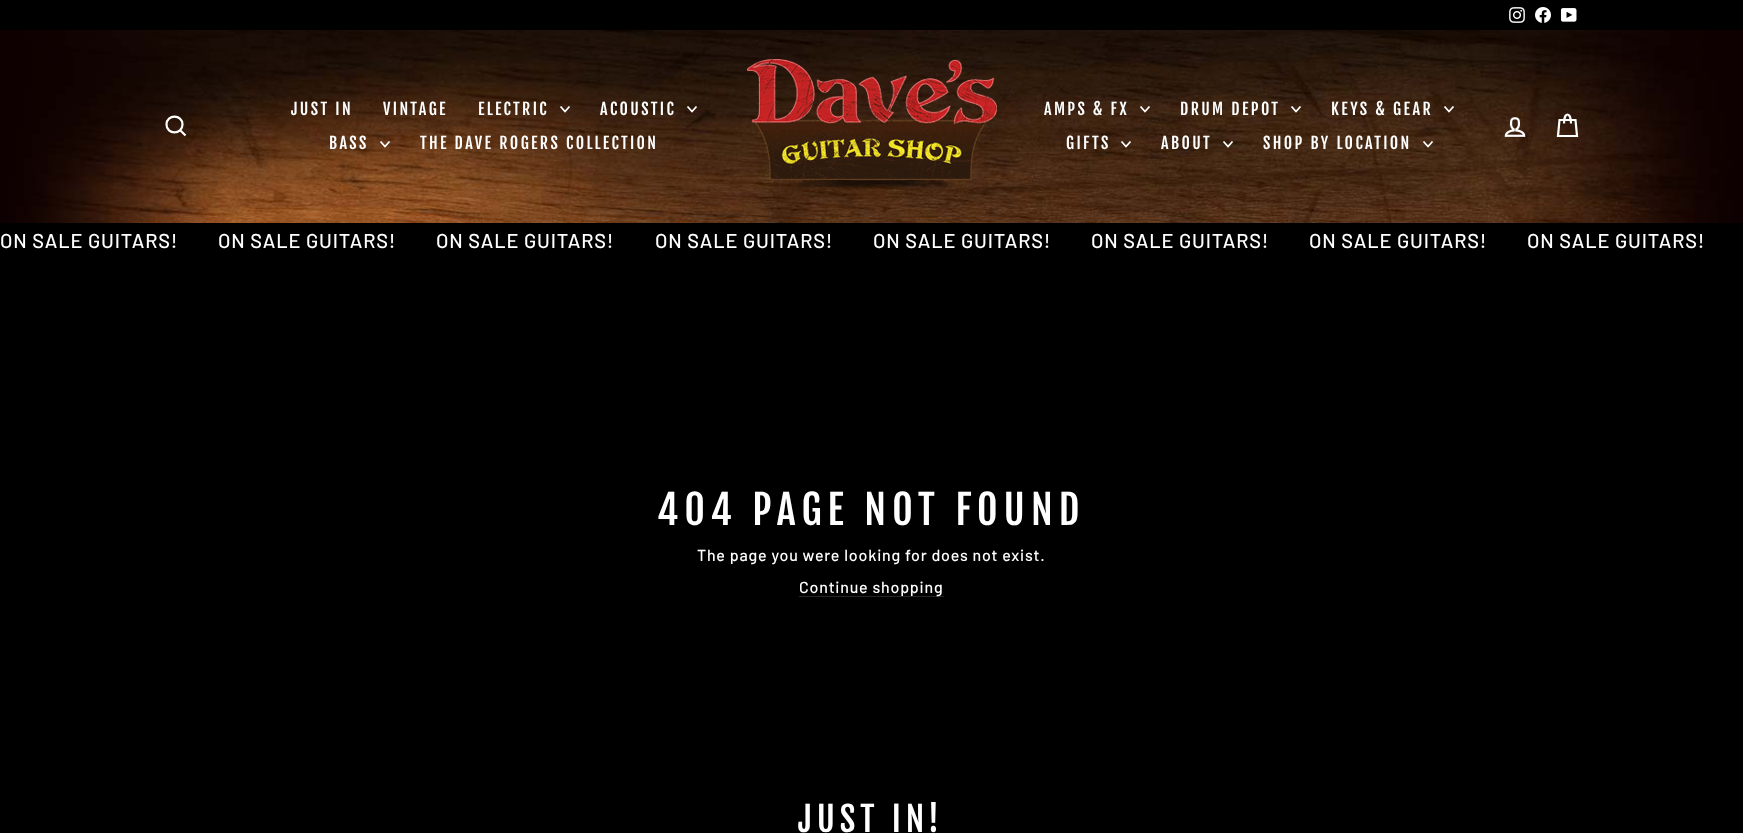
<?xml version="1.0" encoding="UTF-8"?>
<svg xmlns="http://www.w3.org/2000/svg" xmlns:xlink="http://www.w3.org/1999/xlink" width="1743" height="833">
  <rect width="100%" height="100%" fill="#000000" />
  <image x="1509" y="7" width="16" height="16" xlink:href="image1.png" />
  <image x="1535" y="7" width="16" height="16" xlink:href="image2.png" />
  <image x="1561" y="8" width="16" height="14" xlink:href="image3.png" />
  <image x="0" y="30" width="1743" height="193" xlink:href="image4.png" />
  <path d="M 182.5 124.5 c 0 10.5 -16 10.5 -16 0 c 0 -10.5 16 -10.5 16 0 z m 3 11 l -5 -5" fill="none" stroke="#ffffff" stroke-width="2.2" />
  <path d="M 560.5 106.5 l 4.5 5 l 4.5 -5" fill="none" stroke="#ffffff" stroke-width="1.8" />
  <path d="M 687.5 106.5 l 4.5 5 l 4.5 -5" fill="none" stroke="#ffffff" stroke-width="1.8" />
  <path d="M 380.5 141.5 l 4.5 5 l 4.5 -5" fill="none" stroke="#ffffff" stroke-width="1.8" />
  <image x="747" y="59" width="250" height="131" xlink:href="image5.png" />
  <path d="M 1140.5 106.5 l 4.5 5 l 4.5 -5" fill="none" stroke="#ffffff" stroke-width="1.8" />
  <path d="M 1291.5 106.5 l 4.5 5 l 4.5 -5" fill="none" stroke="#ffffff" stroke-width="1.8" />
  <path d="M 1444.5 106.5 l 4.5 5 l 4.5 -5" fill="none" stroke="#ffffff" stroke-width="1.8" />
  <path d="M 1121.5 141.5 l 4.5 5 l 4.5 -5" fill="none" stroke="#ffffff" stroke-width="1.8" />
  <path d="M 1223.5 141.5 l 4.5 5 l 4.5 -5" fill="none" stroke="#ffffff" stroke-width="1.8" />
  <path d="M 1423.5 141.5 l 4.5 5 l 4.5 -5" fill="none" stroke="#ffffff" stroke-width="1.8" />
  <image x="1504" y="117" width="22" height="20" xlink:href="image6.png" />
  <path d="M 1564 123.5 c 0 -12 7 -12 7 0 m -11.5 -3.5 h 16 l 1.5 16 h -19 z" fill="none" stroke="#ffffff" stroke-width="2.2" />
  <rect x="799" y="596" width="145" height="1" fill="#262626" />
  <text x="291" y="115" style="font-family: Fjalla One; font-size: 16px; letter-spacing: 2.4px; fill: #ffffff">JUST IN</text>
  <text x="383" y="115" style="font-family: Fjalla One; font-size: 16px; letter-spacing: 2.4px; fill: #ffffff">VINTAGE</text>
  <text x="478" y="115" style="font-family: Fjalla One; font-size: 16px; letter-spacing: 2.4px; fill: #ffffff">ELECTRIC</text>
  <text x="600" y="115" style="font-family: Fjalla One; font-size: 16px; letter-spacing: 2.4px; fill: #ffffff">ACOUSTIC</text>
  <text x="329" y="149" style="font-family: Fjalla One; font-size: 16px; letter-spacing: 2.4px; fill: #ffffff">BASS</text>
  <text x="420" y="149" style="font-family: Fjalla One; font-size: 16px; letter-spacing: 2.4px; fill: #ffffff">THE DAVE ROGERS COLLECTION</text>
  <text x="1044" y="115" style="font-family: Fjalla One; font-size: 16px; letter-spacing: 2.4px; fill: #ffffff">AMPS &amp; FX</text>
  <text x="1180" y="115" style="font-family: Fjalla One; font-size: 16px; letter-spacing: 2.4px; fill: #ffffff">DRUM DEPOT</text>
  <text x="1331" y="115" style="font-family: Fjalla One; font-size: 16px; letter-spacing: 2.4px; fill: #ffffff">KEYS &amp; GEAR</text>
  <text x="1066" y="149" style="font-family: Fjalla One; font-size: 16px; letter-spacing: 2.4px; fill: #ffffff">GIFTS</text>
  <text x="1161" y="149" style="font-family: Fjalla One; font-size: 16px; letter-spacing: 2.4px; fill: #ffffff">ABOUT</text>
  <text x="1263" y="149" style="font-family: Fjalla One; font-size: 16px; letter-spacing: 2.4px; fill: #ffffff">SHOP BY LOCATION</text>
  <text x="0" y="248" style="font-family: Barlow; font-size: 20px; font-weight: 500; letter-spacing: 0.8px; fill: #ffffff">ON SALE GUITARS!</text>
  <text x="218" y="248" style="font-family: Barlow; font-size: 20px; font-weight: 500; letter-spacing: 0.8px; fill: #ffffff">ON SALE GUITARS!</text>
  <text x="436" y="248" style="font-family: Barlow; font-size: 20px; font-weight: 500; letter-spacing: 0.8px; fill: #ffffff">ON SALE GUITARS!</text>
  <text x="655" y="248" style="font-family: Barlow; font-size: 20px; font-weight: 500; letter-spacing: 0.8px; fill: #ffffff">ON SALE GUITARS!</text>
  <text x="873" y="248" style="font-family: Barlow; font-size: 20px; font-weight: 500; letter-spacing: 0.8px; fill: #ffffff">ON SALE GUITARS!</text>
  <text x="1091" y="248" style="font-family: Barlow; font-size: 20px; font-weight: 500; letter-spacing: 0.8px; fill: #ffffff">ON SALE GUITARS!</text>
  <text x="1309" y="248" style="font-family: Barlow; font-size: 20px; font-weight: 500; letter-spacing: 0.8px; fill: #ffffff">ON SALE GUITARS!</text>
  <text x="1527" y="248" style="font-family: Barlow; font-size: 20px; font-weight: 500; letter-spacing: 0.8px; fill: #ffffff">ON SALE GUITARS!</text>
  <text x="657" y="525" style="font-family: Fjalla One; font-size: 40px; letter-spacing: 6px; fill: #ffffff">404 PAGE NOT FOUND</text>
  <text x="697" y="561" style="font-family: Barlow; font-size: 16px; font-weight: 500; letter-spacing: 0.8px; fill: #ffffff">The page you were looking for does not exist.</text>
  <text x="799" y="593" style="font-family: Barlow; font-size: 16px; font-weight: 500; letter-spacing: 0.8px; fill: #ffffff">Continue shopping</text>
  <text x="798" y="832" style="font-family: Fjalla One; font-size: 34px; letter-spacing: 5px; fill: #ffffff">JUST IN!</text>
</svg>
